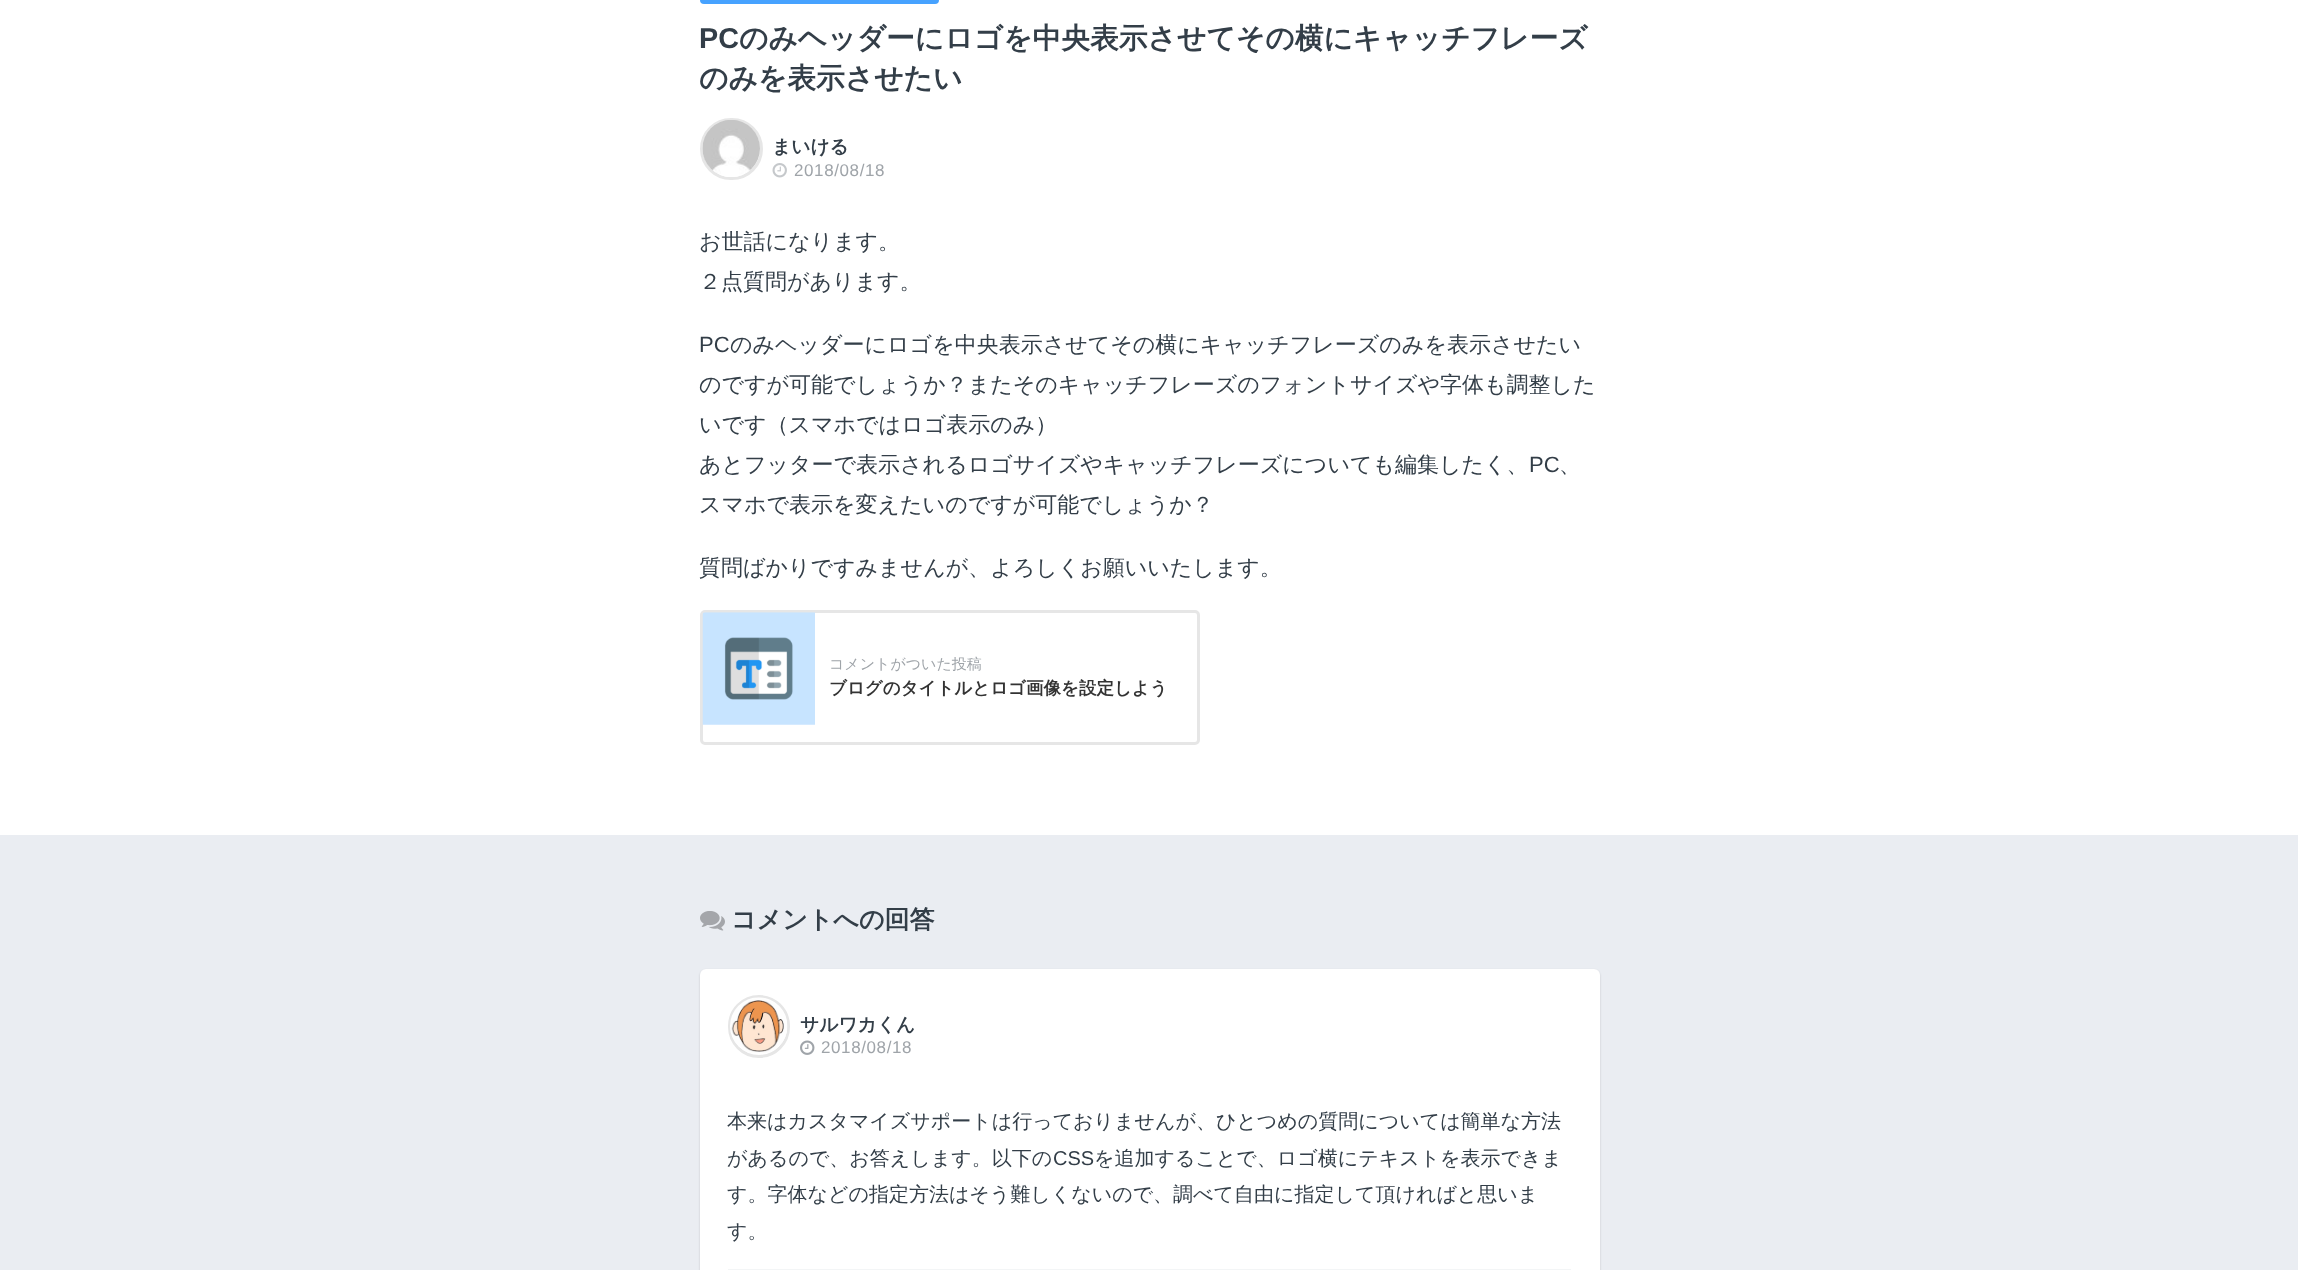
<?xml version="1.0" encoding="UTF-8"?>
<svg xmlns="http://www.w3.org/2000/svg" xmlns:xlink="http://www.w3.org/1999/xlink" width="2298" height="1270">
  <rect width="100%" height="100%" fill="#eaedf2" />
  <rect width="2298" height="835" fill="#ffffff" />
  <rect x="700" y="-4" width="239" height="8" rx="4" fill="#46a2ff" />
  <rect x="701.5" y="119.5" width="60" height="59" rx="29.5" fill="none" stroke="#e6e6e6" stroke-width="3" />
  <image x="702" y="120" width="58" height="57" xlink:href="image1.png" />
  <image x="772" y="163" width="15" height="15" xlink:href="image2.png" />
  <rect x="701.5" y="611.5" width="497" height="132" rx="3.5" fill="none" stroke="#e6e6e6" stroke-width="3" />
  <image x="702" y="612" width="113" height="113" xlink:href="image3.png" />
  <image x="700" y="911" width="25" height="20" xlink:href="image4.png" />
  <rect x="700" y="970" width="900" height="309" rx="6" fill="#000000" fill-opacity="0.15" filter="blur(1px)" />
  <rect x="700" y="969" width="900" height="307" rx="6" fill="#ffffff" />
  <rect x="729.5" y="996.5" width="59" height="60" rx="29.5" fill="none" stroke="#e6e6e6" stroke-width="3" />
  <image x="730" y="997" width="58" height="56" xlink:href="image5.png" />
  <image x="800" y="1040" width="15" height="15" xlink:href="image6.png" />
  <rect x="728" y="1269" width="843" height="1" fill="#f3f5f6" />
  <text x="699" y="48" style="font-family: Liberation Sans; font-size: 28.75px; font-weight: bold; fill: #333e48">PC</text>
  <text x="739" y="48" style="font-family: WenQuanYi Zen Hei; font-size: 28.75px; font-weight: bold; fill: #333e48">のみヘッダーにロゴを中央表示させてその横にキャッチフレーズ</text>
  <text x="699" y="88" style="font-family: WenQuanYi Zen Hei; font-size: 28.75px; font-weight: bold; fill: #333e48">のみを表示させたい</text>
  <text x="772" y="153" style="font-family: WenQuanYi Zen Hei; font-size: 18.75px; font-weight: bold; fill: #333e48">まいける</text>
  <text x="794" y="176" style="font-family: Liberation Sans; font-size: 17px; letter-spacing: 0.6px; fill: #9fa4a9">2018/08/18</text>
  <text x="699" y="249" style="font-family: WenQuanYi Zen Hei; font-size: 22px; font-weight: 500; fill: #333e48">お世話になります。</text>
  <text x="699" y="289" style="font-family: WenQuanYi Zen Hei; font-size: 22px; font-weight: 500; fill: #333e48">２点質問があります。</text>
  <text x="699" y="352" style="font-family: Liberation Sans; font-size: 22px; fill: #333e48">PC</text>
  <text x="730" y="352" style="font-family: WenQuanYi Zen Hei; font-size: 22px; font-weight: 500; fill: #333e48">のみヘッダーにロゴを中央表示させてその横にキャッチフレーズのみを表示させたい</text>
  <text x="699" y="392" style="font-family: WenQuanYi Zen Hei; font-size: 22px; font-weight: 500; fill: #333e48">のですが可能でしょうか？またそのキャッチフレーズのフォントサイズや字体も調整した</text>
  <text x="699" y="432" style="font-family: WenQuanYi Zen Hei; font-size: 22px; font-weight: 500; fill: #333e48">いです（スマホではロゴ表示のみ）</text>
  <text x="699" y="472" style="font-family: WenQuanYi Zen Hei; font-size: 22px; font-weight: 500; fill: #333e48">あとフッターで表示されるロゴサイズやキャッチフレーズについても編集したく、</text>
  <text x="1529" y="472" style="font-family: Liberation Sans; font-size: 22px; fill: #333e48">PC</text>
  <text x="1559" y="472" style="font-family: WenQuanYi Zen Hei; font-size: 22px; font-weight: 500; fill: #333e48">、</text>
  <text x="699" y="512" style="font-family: WenQuanYi Zen Hei; font-size: 22px; font-weight: 500; fill: #333e48">スマホで表示を変えたいのですが可能でしょうか？</text>
  <text x="699" y="575" style="font-family: WenQuanYi Zen Hei; font-size: 22px; font-weight: 500; fill: #333e48">質問ばかりですみませんが、よろしくお願いいたします。</text>
  <text x="829" y="669" style="font-family: WenQuanYi Zen Hei; font-size: 15px; font-weight: 500; fill: #9fa4a9">コメントがついた投稿</text>
  <text x="829" y="694" style="font-family: WenQuanYi Zen Hei; font-size: 17.5px; font-weight: bold; fill: #333333">ブログのタイトルとロゴ画像を設定しよう</text>
  <text x="731" y="928" style="font-family: WenQuanYi Zen Hei; font-size: 25px; font-weight: bold; fill: #333e48">コメントへの回答</text>
  <text x="800" y="1031" style="font-family: WenQuanYi Zen Hei; font-size: 18.75px; font-weight: bold; fill: #333e48">サルワカくん</text>
  <text x="821" y="1053" style="font-family: Liberation Sans; font-size: 17px; letter-spacing: 0.6px; fill: #9fa4a9">2018/08/18</text>
  <text x="727" y="1128" style="font-family: WenQuanYi Zen Hei; font-size: 20px; font-weight: 500; fill: #333e48">本来はカスタマイズサポートは行っておりませんが、ひとつめの質問については簡単な方法</text>
  <text x="727" y="1165" style="font-family: WenQuanYi Zen Hei; font-size: 20px; font-weight: 500; fill: #333e48">があるので、お答えします。以下の</text>
  <text x="1053" y="1165" style="font-family: Liberation Sans; font-size: 20px; fill: #333e48">CSS</text>
  <text x="1094" y="1165" style="font-family: WenQuanYi Zen Hei; font-size: 20px; font-weight: 500; fill: #333e48">を追加することで、ロゴ横にテキストを表示できま</text>
  <text x="727" y="1201" style="font-family: WenQuanYi Zen Hei; font-size: 20px; font-weight: 500; fill: #333e48">す。字体などの指定方法はそう難しくないので、調べて自由に指定して頂ければと思いま</text>
  <text x="727" y="1238" style="font-family: WenQuanYi Zen Hei; font-size: 20px; font-weight: 500; fill: #333e48">す。</text>
</svg>
